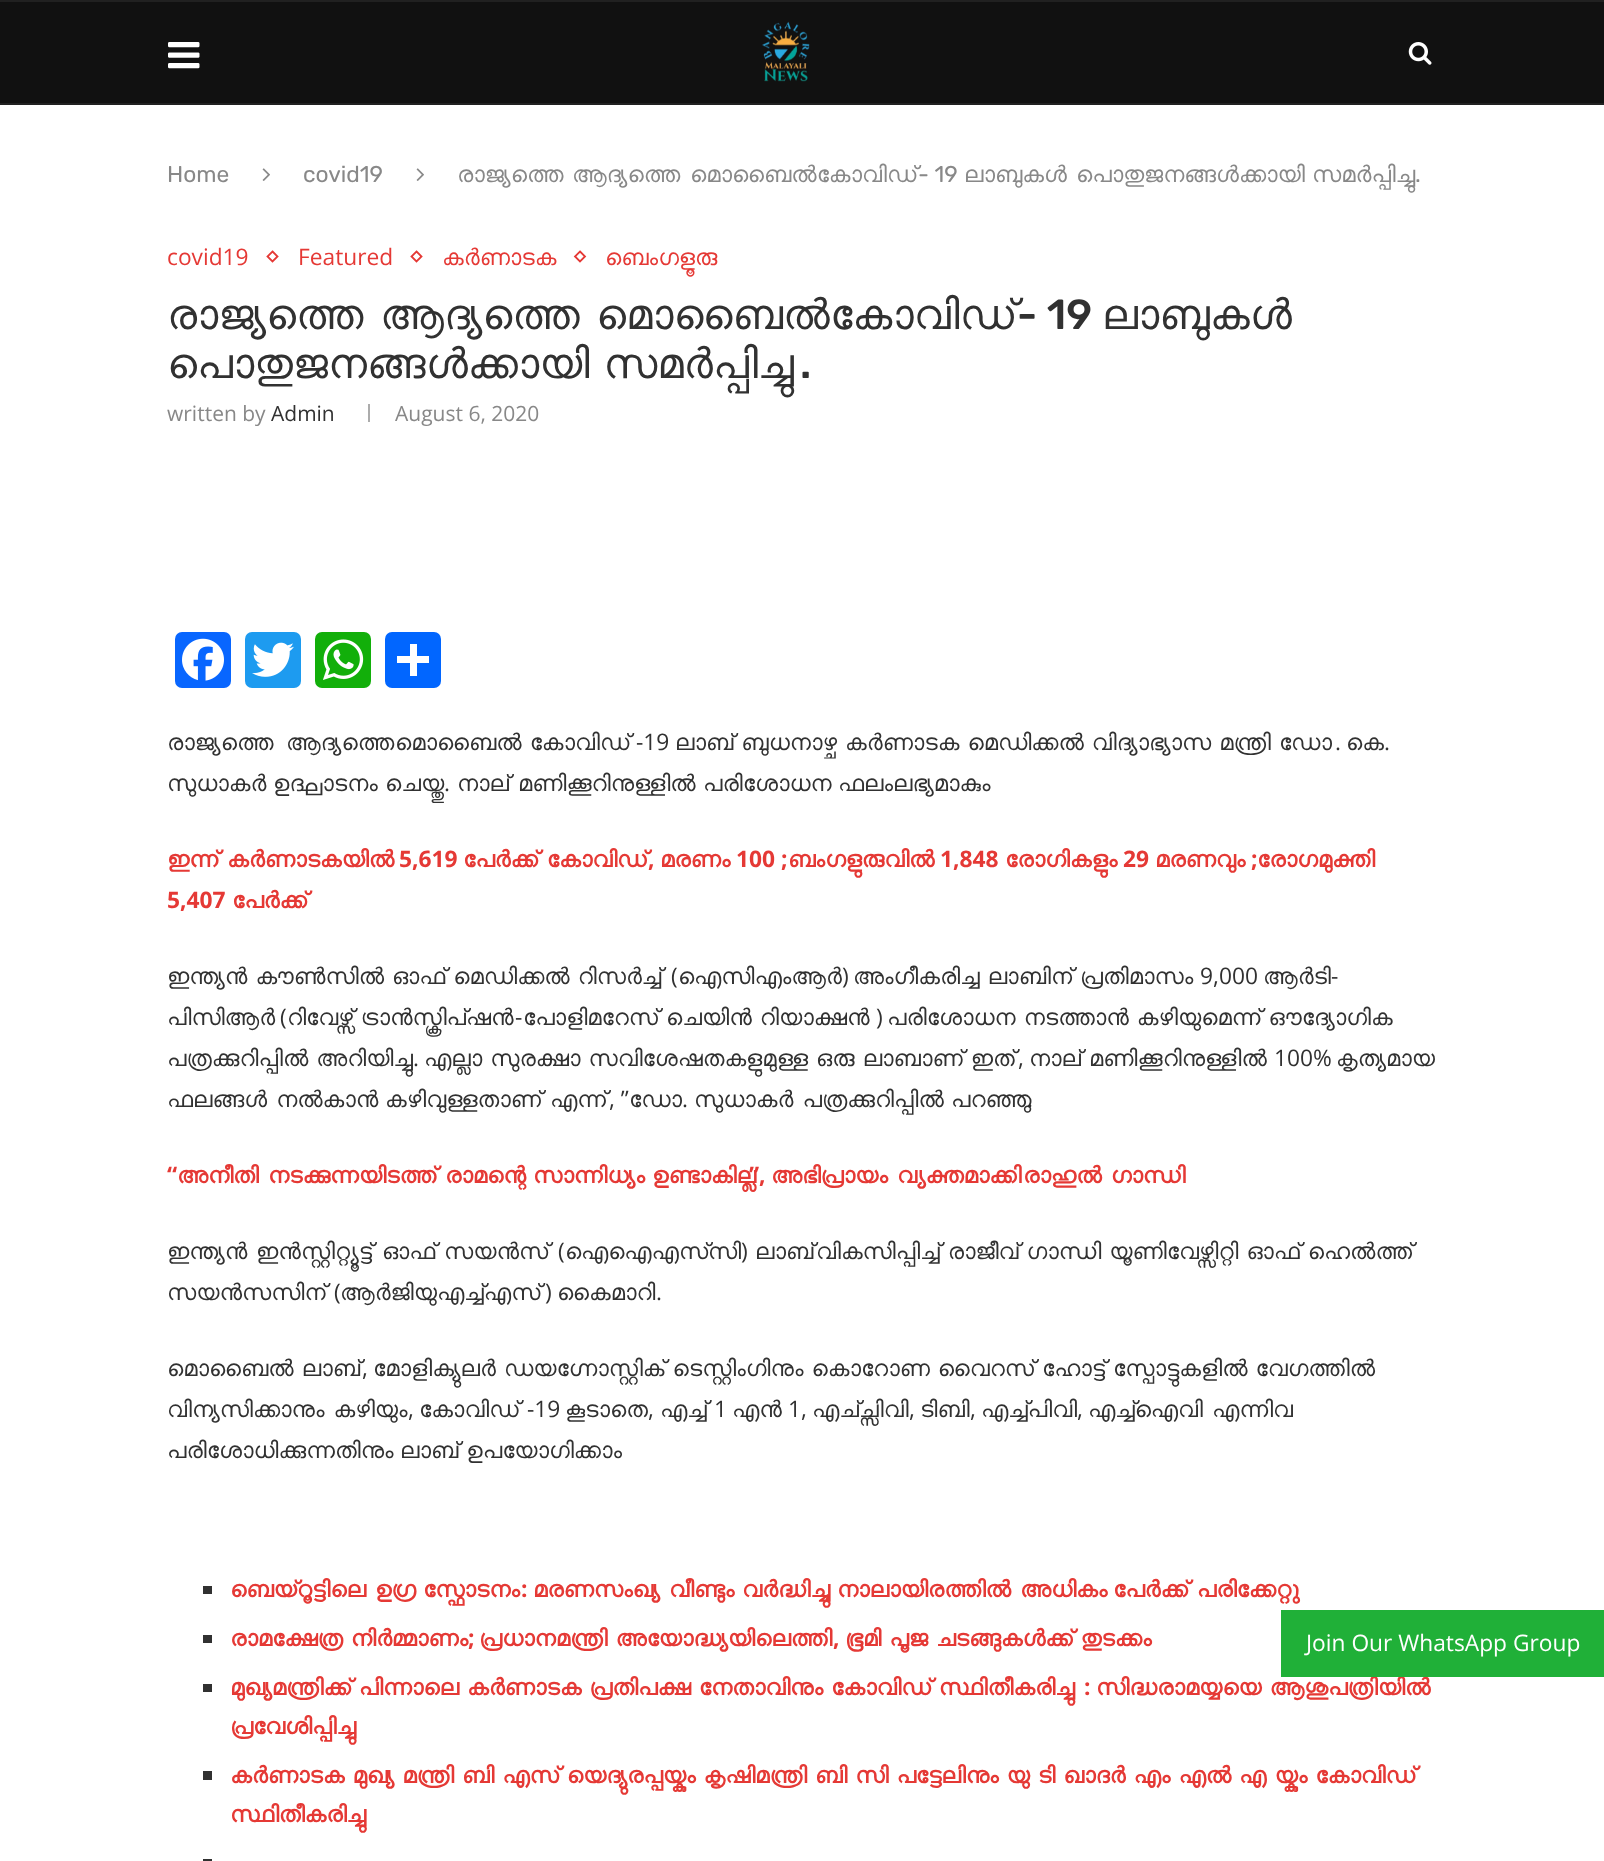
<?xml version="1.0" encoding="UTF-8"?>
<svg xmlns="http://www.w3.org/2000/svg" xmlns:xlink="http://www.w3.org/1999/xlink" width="1604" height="1861">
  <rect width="100%" height="100%" fill="#ffffff" />
  <rect y="2" width="1604" height="101" fill="#111111" />
  <rect width="1604" height="2" fill="#212121" />
  <rect y="103" width="1604" height="2" fill="#212121" />
  <image x="168" y="42" width="32" height="27" xlink:href="image1.png" />
  <image x="762" y="21" width="48" height="61" xlink:href="image2.png" />
  <image x="1408" y="42" width="24" height="23" xlink:href="image3.png" />
  <image x="262" y="168" width="8" height="13" xlink:href="image4.png" />
  <image x="416" y="168" width="8" height="13" xlink:href="image4.png" />
  <path d="M 272.5 251.5 l 5 5 l -5 5 l -5 -5 z" fill="none" stroke="#e53935" stroke-width="1.8" />
  <path d="M 416.5 251.5 l 5 5 l -5 5 l -5 -5 z" fill="none" stroke="#e53935" stroke-width="1.8" />
  <path d="M 580 251.5 l 5 5 l -5 5 l -5 -5 z" fill="none" stroke="#e53935" stroke-width="1.8" />
  <rect x="368" y="404" width="2" height="18" fill="#acacac" />
  <rect x="175" y="632" width="56" height="56" rx="7" fill="#0866ff" />
  <image x="182" y="638" width="42" height="43" xlink:href="image5.png" />
  <rect x="245" y="632" width="56" height="56" rx="7" fill="#1d9bf0" />
  <image x="252" y="642" width="42" height="35" xlink:href="image6.png" />
  <rect x="315" y="632" width="56" height="56" rx="7" fill="#12af0a" />
  <image x="323" y="639" width="41" height="41" xlink:href="image7.png" />
  <rect x="385" y="632" width="56" height="56" rx="7" fill="#0166ff" />
  <rect x="410" y="644" width="7" height="32" fill="#ffffff" />
  <rect x="397" y="656" width="32" height="7" fill="#ffffff" />
  <rect x="203" y="1586" width="9" height="8" fill="#313131" />
  <rect x="203" y="1635" width="9" height="8" fill="#313131" />
  <rect x="203" y="1684" width="9" height="8" fill="#313131" />
  <rect x="203" y="1771" width="9" height="9" fill="#313131" />
  <rect x="203" y="1859" width="9" height="2" fill="#313131" />
  <text x="167" y="182" style="font-family: Rubik; font-size: 22.75px; fill: #888888">Home</text>
  <text x="303" y="182" style="font-family: Rubik; font-size: 22.75px; fill: #888888">covid19</text>
  <text x="457" y="182" style="font-family: FreeSans; font-size: 22.75px; fill: #888888">രാജ്യത്തെ</text>
  <text x="572" y="182" style="font-family: FreeSans; font-size: 22.75px; fill: #888888">ആദ്യത്തെ</text>
  <text x="690" y="182" style="font-family: FreeSans; font-size: 22.75px; fill: #888888">മൊബൈൽകോവിഡ്</text>
  <text x="918" y="182" style="font-family: Rubik; font-size: 22.75px; fill: #888888">- 19</text>
  <text x="964" y="182" style="font-family: FreeSans; font-size: 22.75px; fill: #888888">ലാബുകൾ പൊതുജനങ്ങൾക്കായി</text>
  <text x="1312" y="182" style="font-family: FreeSans; font-size: 22.75px; fill: #888888">സമർപ്പിച്ചു</text>
  <text x="1415" y="182" style="font-family: Rubik; font-size: 22.75px; fill: #888888">.</text>
  <text x="167" y="265" style="font-family: Open Sans; font-size: 22.75px; fill: #e53935">covid19</text>
  <text x="298" y="265" style="font-family: Open Sans; font-size: 22.75px; fill: #e53935">Featured</text>
  <text x="442" y="265" style="font-family: FreeSans; font-size: 22.75px; fill: #e53935">കർണാടക</text>
  <text x="605" y="265" style="font-family: FreeSans; font-size: 22.75px; fill: #e53935">ബെംഗളൂരു</text>
  <text x="167" y="329" style="font-family: FreeSans; font-size: 42px; fill: #313131">രാജ്യത്തെ</text>
  <text x="380" y="329" style="font-family: FreeSans; font-size: 42px; fill: #313131">ആദ്യത്തെ</text>
  <text x="596" y="329" style="font-family: FreeSans; font-size: 42px; fill: #313131">മൊബൈൽകോവിഡ്</text>
  <text x="1017" y="329" style="font-family: Rubik; font-size: 42px; font-weight: 500; fill: #313131">- 19</text>
  <text x="1102" y="329" style="font-family: FreeSans; font-size: 42px; fill: #313131">ലാബുകൾ</text>
  <text x="167" y="378" word-spacing="-3" style="font-family: FreeSans; font-size: 42px; fill: #313131">പൊതുജനങ്ങൾക്കായി സമർപ്പിച്ചു</text>
  <text x="800" y="378" style="font-family: Rubik; font-size: 42px; font-weight: 500; fill: #313131">.</text>
  <text x="167" y="421" style="font-family: Open Sans; font-size: 21px; fill: #888888">written by</text>
  <text x="271" y="421" style="font-family: Open Sans; font-size: 21px; fill: #313131">Admin</text>
  <text x="395" y="421" style="font-family: Open Sans; font-size: 21px; fill: #888888">August 6, 2020</text>
  <text x="167" y="750" style="font-family: FreeSans; font-size: 22.75px; fill: #313131">രാജ്യത്തെ</text>
  <text x="286" y="750" style="font-family: FreeSans; font-size: 22.75px; fill: #313131">ആദ്യത്തെ</text>
  <text x="395" y="750" word-spacing="-1.1" style="font-family: FreeSans; font-size: 22.75px; fill: #313131">മൊബൈൽ കോവിഡ്</text>
  <text x="636" y="750" style="font-family: Open Sans; font-size: 22.75px; fill: #313131">-19</text>
  <text x="675" y="750" word-spacing="-1.1" style="font-family: FreeSans; font-size: 22.75px; fill: #313131">ലാബ് ബുധനാഴ്ച കർണാടക മെഡിക്കൽ വിദ്യാഭ്യാസ മന്ത്രി ഡോ</text>
  <text x="1335" y="750" style="font-family: Open Sans; font-size: 22.75px; fill: #313131">.</text>
  <text x="1346" y="750" style="font-family: FreeSans; font-size: 22.75px; fill: #313131">കെ</text>
  <text x="1384" y="750" style="font-family: Open Sans; font-size: 22.75px; fill: #313131">.</text>
  <text x="167" y="791" style="font-family: FreeSans; font-size: 22.75px; fill: #313131">സുധാകർ</text>
  <text x="273" y="791" style="font-family: FreeSans; font-size: 22.75px; fill: #313131">ഉദ്ഘാടനം</text>
  <text x="385" y="791" style="font-family: FreeSans; font-size: 22.75px; fill: #313131">ചെയ്തു</text>
  <text x="444" y="791" style="font-family: Open Sans; font-size: 22.75px; fill: #313131">.</text>
  <text x="457" y="791" style="font-family: FreeSans; font-size: 22.75px; fill: #313131">നാല്</text>
  <text x="518" y="791" style="font-family: FreeSans; font-size: 22.75px; fill: #313131">മണിക്കൂറിനുള്ളിൽ</text>
  <text x="703" y="791" style="font-family: FreeSans; font-size: 22.75px; fill: #313131">പരിശോധന</text>
  <text x="838" y="791" style="font-family: FreeSans; font-size: 22.75px; fill: #313131">ഫലംലഭ്യമാകും</text>
  <text x="167" y="867" style="font-family: FreeSans; font-size: 22.75px; font-weight: bold; fill: #e53935">ഇന്ന് കർണാടകയിൽ</text>
  <text x="399" y="867" style="font-family: Open Sans; font-size: 22.75px; font-weight: bold; fill: #e53935">5,619</text>
  <text x="463" y="867" style="font-family: FreeSans; font-size: 22.75px; font-weight: bold; fill: #e53935">പേർക്ക് കോവിഡ്</text>
  <text x="648" y="867" style="font-family: Open Sans; font-size: 22.75px; font-weight: bold; fill: #e53935">,</text>
  <text x="660" y="867" style="font-family: FreeSans; font-size: 22.75px; font-weight: bold; fill: #e53935">മരണം</text>
  <text x="736" y="867" style="font-family: Open Sans; font-size: 22.75px; font-weight: bold; fill: #e53935">100 ;</text>
  <text x="788" y="867" style="font-family: FreeSans; font-size: 22.75px; font-weight: bold; fill: #e53935">ബംഗളുരുവിൽ</text>
  <text x="940" y="867" style="font-family: Open Sans; font-size: 22.75px; font-weight: bold; fill: #e53935">1,848</text>
  <text x="1005" y="867" style="font-family: FreeSans; font-size: 22.75px; font-weight: bold; fill: #e53935">രോഗികളും</text>
  <text x="1123" y="867" style="font-family: Open Sans; font-size: 22.75px; font-weight: bold; fill: #e53935">29</text>
  <text x="1155" y="867" style="font-family: FreeSans; font-size: 22.75px; font-weight: bold; fill: #e53935">മരണവും</text>
  <text x="1251" y="867" style="font-family: Open Sans; font-size: 22.75px; font-weight: bold; fill: #e53935">;</text>
  <text x="1257" y="867" style="font-family: FreeSans; font-size: 22.75px; font-weight: bold; fill: #e53935">രോഗമുക്തി</text>
  <text x="167" y="908" style="font-family: Open Sans; font-size: 22.75px; font-weight: bold; fill: #e53935">5,407</text>
  <text x="232" y="908" style="font-family: FreeSans; font-size: 22.75px; font-weight: bold; fill: #e53935">പേർക്ക്</text>
  <text x="167" y="984" word-spacing="-1.1" style="font-family: FreeSans; font-size: 22.75px; fill: #313131">ഇന്ത്യൻ കൗൺസിൽ ഓഫ് മെഡിക്കൽ റിസർച്ച്</text>
  <text x="671" y="984" style="font-family: Open Sans; font-size: 22.75px; fill: #313131">(</text>
  <text x="678" y="984" style="font-family: FreeSans; font-size: 22.75px; fill: #313131">ഐസിഎംആർ</text>
  <text x="842" y="984" style="font-family: Open Sans; font-size: 22.75px; fill: #313131">)</text>
  <text x="853" y="984" word-spacing="-1.1" style="font-family: FreeSans; font-size: 22.75px; fill: #313131">അംഗീകരിച്ച ലാബിന് പ്രതിമാസം</text>
  <text x="1200" y="984" style="font-family: Open Sans; font-size: 22.75px; fill: #313131">9,000</text>
  <text x="1263" y="984" style="font-family: FreeSans; font-size: 22.75px; fill: #313131">ആർ‌ടി</text>
  <text x="1331" y="984" style="font-family: Open Sans; font-size: 22.75px; fill: #313131">-</text>
  <text x="167" y="1025" style="font-family: FreeSans; font-size: 22.75px; fill: #313131">പി‌സി‌ആർ</text>
  <text x="280" y="1025" style="font-family: Open Sans; font-size: 22.75px; fill: #313131">(</text>
  <text x="287" y="1025" word-spacing="-1.1" style="font-family: FreeSans; font-size: 22.75px; fill: #313131">റിവേഴ്സ് ട്രാൻസ്ക്രിപ്ഷൻ</text>
  <text x="515" y="1025" style="font-family: Open Sans; font-size: 22.75px; fill: #313131">-</text>
  <text x="523" y="1025" word-spacing="-1.1" style="font-family: FreeSans; font-size: 22.75px; fill: #313131">പോളിമറേസ് ചെയിൻ റിയാക്ഷൻ</text>
  <text x="876" y="1025" style="font-family: Open Sans; font-size: 22.75px; fill: #313131">)</text>
  <text x="887" y="1025" word-spacing="-1.1" style="font-family: FreeSans; font-size: 22.75px; fill: #313131">പരിശോധന നടത്താൻ കഴിയുമെന്ന് ഔദ്യോഗിക</text>
  <text x="167" y="1066" word-spacing="-1.1" style="font-family: FreeSans; font-size: 22.75px; fill: #313131">പത്രക്കുറിപ്പിൽ അറിയിച്ചു</text>
  <text x="413" y="1066" style="font-family: Open Sans; font-size: 22.75px; fill: #313131">.</text>
  <text x="424" y="1066" word-spacing="-1.1" style="font-family: FreeSans; font-size: 22.75px; fill: #313131">എല്ലാ സുരക്ഷാ സവിശേഷതകളുമുള്ള ഒരു ലാബാണ് ഇത്</text>
  <text x="1018" y="1066" style="font-family: Open Sans; font-size: 22.75px; fill: #313131">,</text>
  <text x="1029" y="1066" word-spacing="-1.1" style="font-family: FreeSans; font-size: 22.75px; fill: #313131">നാല് മണിക്കൂറിനുള്ളിൽ</text>
  <text x="1274" y="1066" style="font-family: Open Sans; font-size: 22.75px; fill: #313131">100%</text>
  <text x="1336" y="1066" style="font-family: FreeSans; font-size: 22.75px; fill: #313131">കൃത്യമായ</text>
  <text x="167" y="1107" style="font-family: FreeSans; font-size: 22.75px; fill: #313131">ഫലങ്ങൾ നൽകാൻ</text>
  <text x="385" y="1107" style="font-family: FreeSans; font-size: 22.75px; fill: #313131">കഴിവുള്ളതാണ്</text>
  <text x="550" y="1107" style="font-family: FreeSans; font-size: 22.75px; fill: #313131">എന്ന്</text>
  <text x="609" y="1107" style="font-family: Open Sans; font-size: 22.75px; fill: #313131">, ”</text>
  <text x="629" y="1107" style="font-family: FreeSans; font-size: 22.75px; fill: #313131">ഡോ</text>
  <text x="682" y="1107" style="font-family: Open Sans; font-size: 22.75px; fill: #313131">.</text>
  <text x="694" y="1107" style="font-family: FreeSans; font-size: 22.75px; fill: #313131">സുധാകർ പത്രക്കുറിപ്പിൽ</text>
  <text x="951" y="1107" style="font-family: FreeSans; font-size: 22.75px; fill: #313131">പറഞ്ഞു</text>
  <text x="1027" y="1107" style="font-family: Open Sans; font-size: 22.75px; fill: #313131">.</text>
  <text x="167" y="1183" style="font-family: Open Sans; font-size: 22.75px; font-weight: bold; fill: #e53935">“</text>
  <text x="177" y="1183" style="font-family: FreeSans; font-size: 22.75px; font-weight: bold; fill: #e53935">അനീതി നടക്കുന്നയിടത്ത്</text>
  <text x="445" y="1183" style="font-family: FreeSans; font-size: 22.75px; font-weight: bold; fill: #e53935">രാമന്റെ</text>
  <text x="533" y="1183" style="font-family: FreeSans; font-size: 22.75px; font-weight: bold; fill: #e53935">സാന്നിധ്യം</text>
  <text x="652" y="1183" style="font-family: FreeSans; font-size: 22.75px; font-weight: bold; fill: #e53935">ഉണ്ടാകില്ല</text>
  <text x="749" y="1183" style="font-family: Open Sans; font-size: 22.75px; font-weight: bold; fill: #e53935">”,</text>
  <text x="771" y="1183" style="font-family: FreeSans; font-size: 22.75px; font-weight: bold; fill: #e53935">അഭിപ്രായം വ്യക്തമാക്കി</text>
  <text x="1023" y="1183" style="font-family: FreeSans; font-size: 22.75px; font-weight: bold; fill: #e53935">രാഹുല്‍ ഗാന്ധി</text>
  <text x="167" y="1259" style="font-family: FreeSans; font-size: 22.75px; fill: #313131">ഇന്ത്യൻ</text>
  <text x="256" y="1259" style="font-family: FreeSans; font-size: 22.75px; fill: #313131">ഇൻസ്റ്റിറ്റ്യൂട്ട്</text>
  <text x="382" y="1259" style="font-family: FreeSans; font-size: 22.75px; fill: #313131">ഓഫ്</text>
  <text x="444" y="1259" style="font-family: FreeSans; font-size: 22.75px; fill: #313131">സയൻസ്</text>
  <text x="558" y="1259" style="font-family: Open Sans; font-size: 22.75px; fill: #313131">(</text>
  <text x="565" y="1259" style="font-family: FreeSans; font-size: 22.75px; fill: #313131">ഐ‌ഐ‌എസ്‌സി</text>
  <text x="741" y="1259" style="font-family: Open Sans; font-size: 22.75px; fill: #313131">)</text>
  <text x="755" y="1259" style="font-family: FreeSans; font-size: 22.75px; fill: #313131">ലാബ്</text>
  <text x="816" y="1259" word-spacing="-1.1" style="font-family: FreeSans; font-size: 22.75px; fill: #313131">വികസിപ്പിച്ച് രാജീവ് ഗാന്ധി യൂണിവേഴ്സിറ്റി ഓഫ് ഹെൽത്ത്</text>
  <text x="167" y="1300" style="font-family: FreeSans; font-size: 22.75px; fill: #313131">സയൻസസിന്</text>
  <text x="334" y="1300" style="font-family: Open Sans; font-size: 22.75px; fill: #313131">(</text>
  <text x="340" y="1300" style="font-family: FreeSans; font-size: 22.75px; fill: #313131">ആർ‌ജി‌യു‌എച്ച്എസ്</text>
  <text x="545" y="1300" style="font-family: Open Sans; font-size: 22.75px; fill: #313131">)</text>
  <text x="557" y="1300" style="font-family: FreeSans; font-size: 22.75px; fill: #313131">കൈമാറി</text>
  <text x="656" y="1300" style="font-family: Open Sans; font-size: 22.75px; fill: #313131">.</text>
  <text x="167" y="1376" word-spacing="-1.1" style="font-family: FreeSans; font-size: 22.75px; fill: #313131">മൊബൈൽ ലാബ്</text>
  <text x="362" y="1376" style="font-family: Open Sans; font-size: 22.75px; fill: #313131">,</text>
  <text x="373" y="1376" word-spacing="-1.1" style="font-family: FreeSans; font-size: 22.75px; fill: #313131">മോളിക്യുലർ ഡയഗ്നോസ്റ്റിക് ടെസ്റ്റിംഗിനും കൊറോണ വൈറസ് ഹോട്ട് സ്പോട്ടുകളിൽ വേഗത്തിൽ</text>
  <text x="167" y="1417" style="font-family: FreeSans; font-size: 22.75px; fill: #313131">വിന്യസിക്കാനും കഴിയും</text>
  <text x="408" y="1417" style="font-family: Open Sans; font-size: 22.75px; fill: #313131">,</text>
  <text x="419" y="1417" style="font-family: FreeSans; font-size: 22.75px; fill: #313131">കോവിഡ്</text>
  <text x="527" y="1417" style="font-family: Open Sans; font-size: 22.75px; fill: #313131">-19</text>
  <text x="565" y="1417" style="font-family: FreeSans; font-size: 22.75px; fill: #313131">കൂടാതെ</text>
  <text x="648" y="1417" style="font-family: Open Sans; font-size: 22.75px; fill: #313131">,</text>
  <text x="660" y="1417" style="font-family: FreeSans; font-size: 22.75px; fill: #313131">എച്ച്</text>
  <text x="714" y="1417" style="font-family: Open Sans; font-size: 22.75px; fill: #313131">1</text>
  <text x="732" y="1417" style="font-family: FreeSans; font-size: 22.75px; fill: #313131">എൻ</text>
  <text x="788" y="1417" style="font-family: Open Sans; font-size: 22.75px; fill: #313131">1,</text>
  <text x="812" y="1417" style="font-family: FreeSans; font-size: 22.75px; fill: #313131">എച്ച്സിവി</text>
  <text x="909" y="1417" style="font-family: Open Sans; font-size: 22.75px; fill: #313131">,</text>
  <text x="920" y="1417" style="font-family: FreeSans; font-size: 22.75px; fill: #313131">ടിബി</text>
  <text x="970" y="1417" style="font-family: Open Sans; font-size: 22.75px; fill: #313131">,</text>
  <text x="981" y="1417" style="font-family: FreeSans; font-size: 22.75px; fill: #313131">എച്ച്പിവി</text>
  <text x="1077" y="1417" style="font-family: Open Sans; font-size: 22.75px; fill: #313131">,</text>
  <text x="1088" y="1417" style="font-family: FreeSans; font-size: 22.75px; fill: #313131">എച്ച്ഐവി എന്നിവ</text>
  <text x="167" y="1458" style="font-family: FreeSans; font-size: 22.75px; fill: #313131">പരിശോധിക്കുന്നതിനും</text>
  <text x="400" y="1458" word-spacing="-1.1" style="font-family: FreeSans; font-size: 22.75px; fill: #313131">ലാബ് ഉപയോഗിക്കാം</text>
  <text x="230" y="1597" style="font-family: FreeSans; font-size: 22.75px; font-weight: bold; fill: #e53935">ബെയ്റൂട്ടിലെ ഉഗ്ര</text>
  <text x="423" y="1597" style="font-family: FreeSans; font-size: 22.75px; font-weight: bold; fill: #e53935">സ്ഫോടനം</text>
  <text x="521" y="1597" style="font-family: Open Sans; font-size: 22.75px; font-weight: bold; fill: #e53935">:</text>
  <text x="533" y="1597" style="font-family: FreeSans; font-size: 22.75px; font-weight: bold; fill: #e53935">മരണസംഖ്യ വീണ്ടും</text>
  <text x="742" y="1597" style="font-family: FreeSans; font-size: 22.75px; font-weight: bold; fill: #e53935">വര്‍ദ്ധിച്ചു</text>
  <text x="837" y="1597" style="font-family: FreeSans; font-size: 22.75px; font-weight: bold; fill: #e53935">നാലായിരത്തില്‍ അധികം</text>
  <text x="1113" y="1597" style="font-family: FreeSans; font-size: 22.75px; font-weight: bold; fill: #e53935">പേര്‍ക്ക് പരിക്കേറ്റു</text>
  <text x="825" y="1597" style="font-family: Open Sans; font-size: 22.75px; font-weight: bold; fill: #e53935">,</text>
  <text x="230" y="1646" word-spacing="-1.1" style="font-family: FreeSans; font-size: 22.75px; font-weight: bold; fill: #e53935">രാമക്ഷേത്ര നിര്‍മ്മാണം</text>
  <text x="468" y="1646" style="font-family: Open Sans; font-size: 22.75px; font-weight: bold; fill: #e53935">;</text>
  <text x="479" y="1646" word-spacing="-1.1" style="font-family: FreeSans; font-size: 22.75px; font-weight: bold; fill: #e53935">പ്രധാനമന്ത്രി അയോദ്ധ്യയിലെത്തി</text>
  <text x="845" y="1646" word-spacing="-1.1" style="font-family: FreeSans; font-size: 22.75px; font-weight: bold; fill: #e53935">ഭൂമി പൂജ ചടങ്ങുകള്‍ക്ക് തുടക്കം</text>
  <text x="833" y="1646" style="font-family: Open Sans; font-size: 22.75px; font-weight: bold; fill: #e53935">,</text>
  <text x="230" y="1695" word-spacing="-1.1" style="font-family: FreeSans; font-size: 22.75px; font-weight: bold; fill: #e53935">മുഖ്യമന്ത്രിക്ക് പിന്നാലെ കർണാടക പ്രതിപക്ഷ നേതാവിനും കോവിഡ് സ്ഥിതീകരിച്ചു</text>
  <text x="1084" y="1695" style="font-family: Open Sans; font-size: 22.75px; font-weight: bold; fill: #e53935">:</text>
  <text x="1096" y="1695" word-spacing="-1.1" style="font-family: FreeSans; font-size: 22.75px; font-weight: bold; fill: #e53935">സിദ്ധരാമയ്യയെ ആശുപത്രിയിൽ</text>
  <text x="230" y="1734" style="font-family: FreeSans; font-size: 22.75px; font-weight: bold; fill: #e53935">പ്രവേശിപ്പിച്ചു</text>
  <text x="230" y="1783" word-spacing="-1.1" style="font-family: FreeSans; font-size: 22.75px; font-weight: bold; fill: #e53935">കർണാടക മുഖ്യ മന്ത്രി ബി എസ് യെദ്യുരപ്പയ്കും കൃഷിമന്ത്രി ബി സി പട്ടേലിനും യു ടി ഖാദർ എം എൽ എ യ്കും കോവിഡ്</text>
  <text x="230" y="1822" style="font-family: FreeSans; font-size: 22.75px; font-weight: bold; fill: #e53935">സ്ഥിതീകരിച്ചു</text>
  <rect x="1281" y="1610" width="323" height="67" fill="#20b038" />
  <text x="1306" y="1651" style="font-family: Open Sans; font-size: 22.75px; fill: #ffffff">Join Our WhatsApp Group</text>
</svg>
